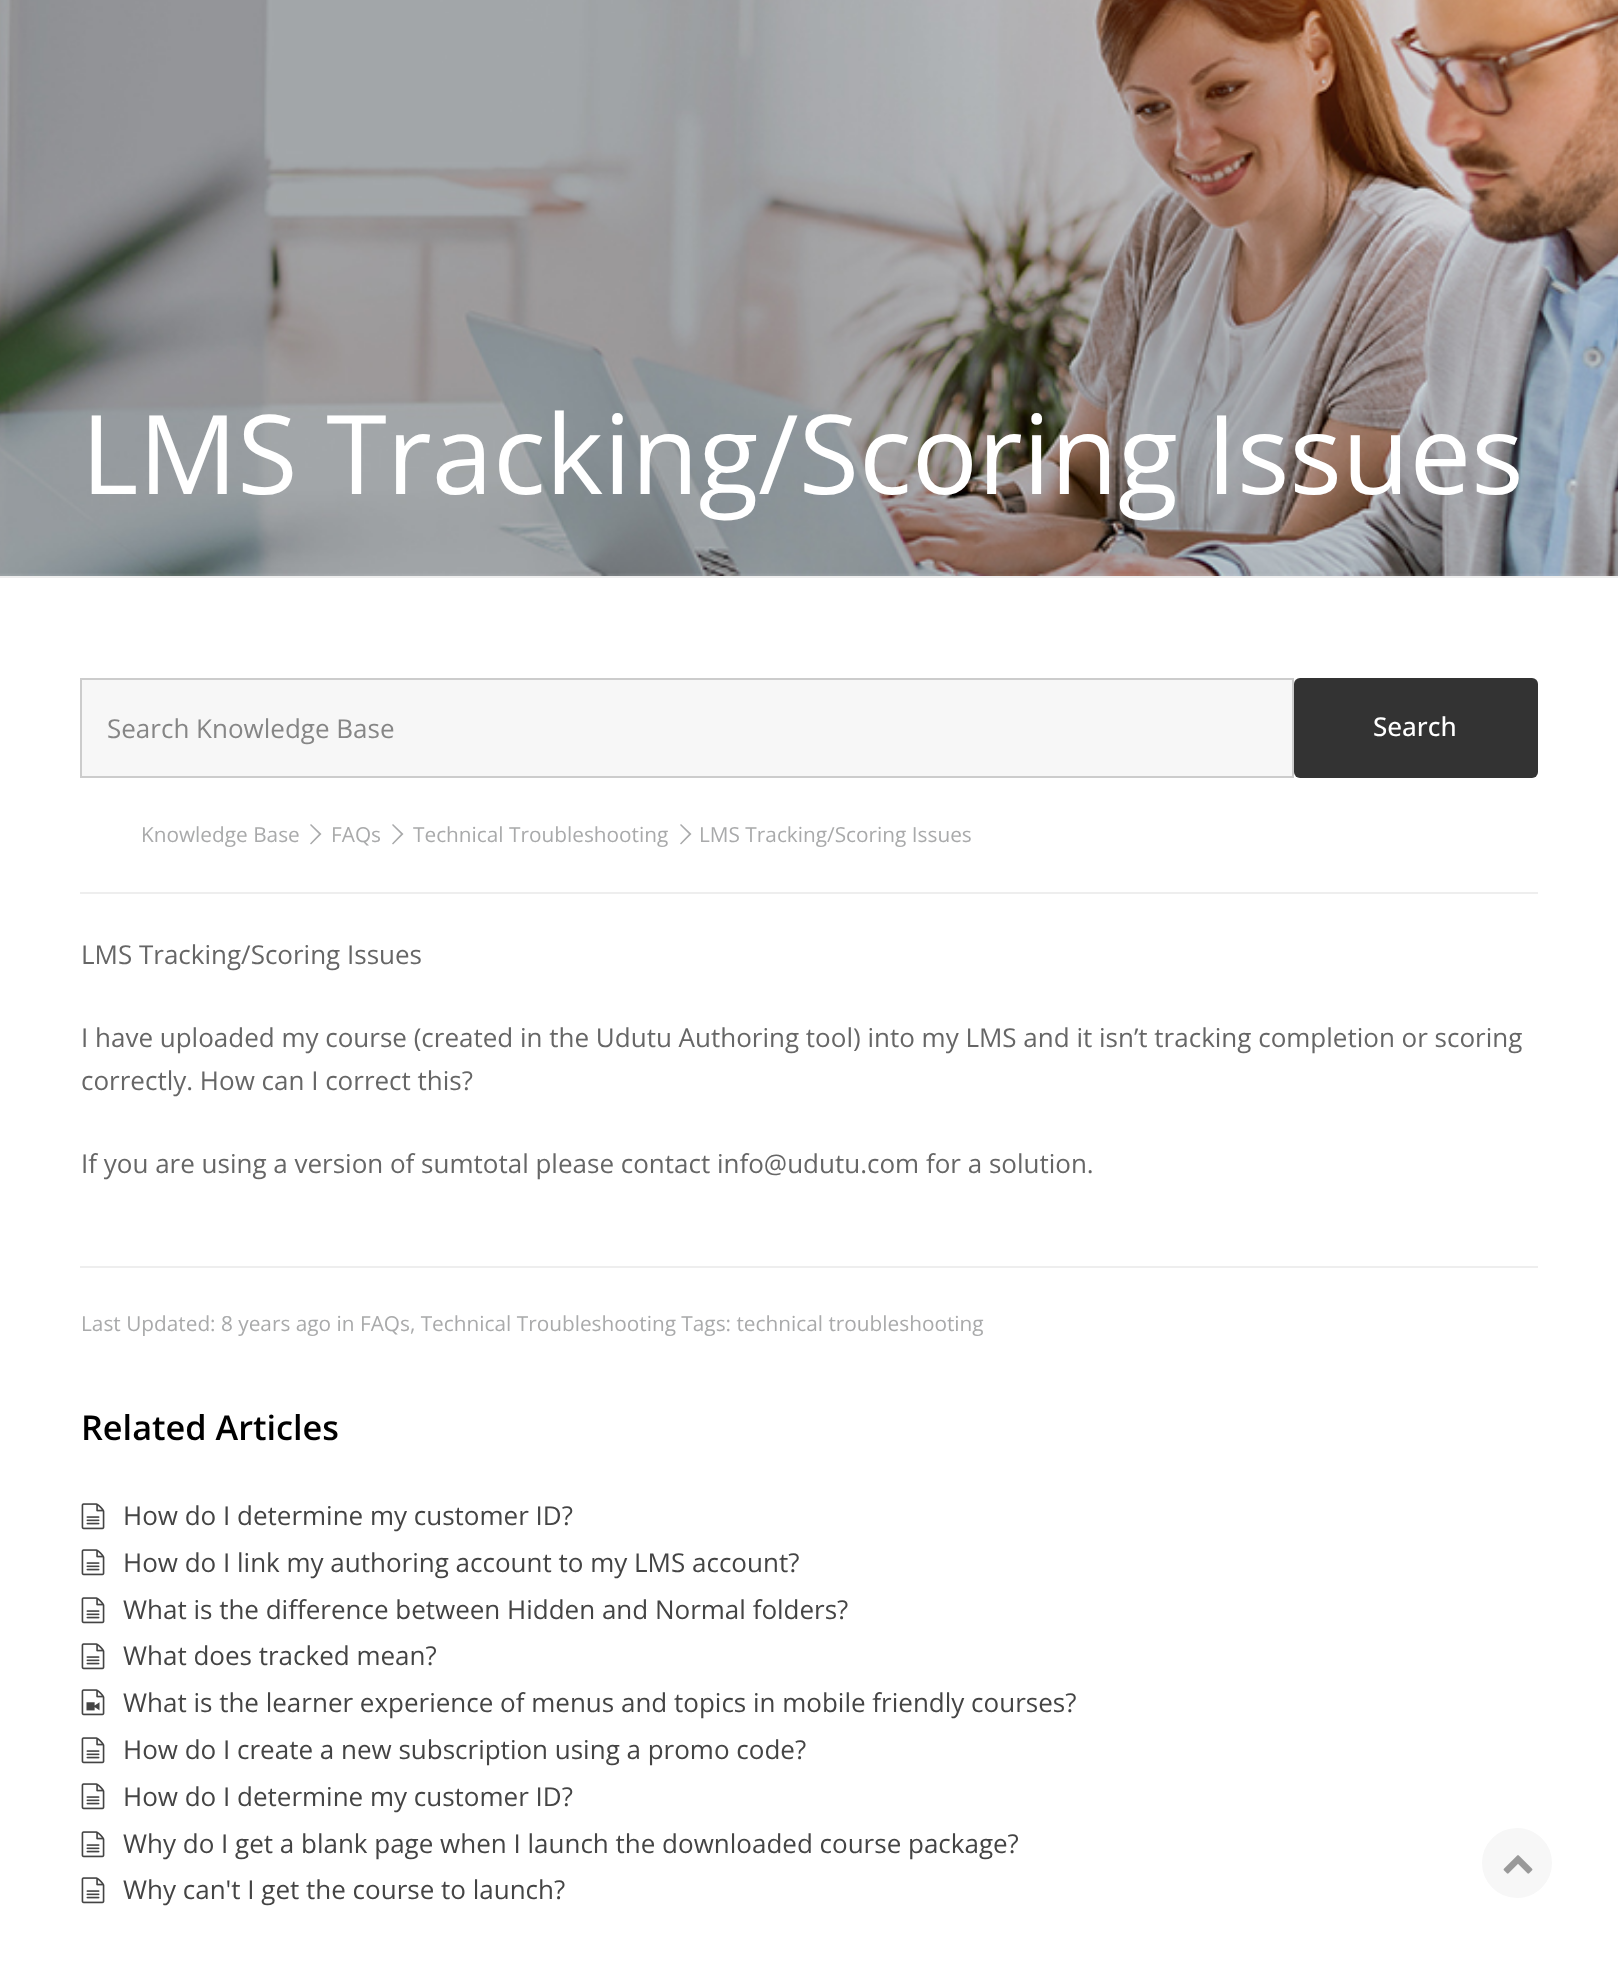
<?xml version="1.0" encoding="UTF-8"?>
<svg xmlns="http://www.w3.org/2000/svg" xmlns:xlink="http://www.w3.org/1999/xlink" width="1618" height="1964">
  <rect width="100%" height="100%" fill="#ffffff" />
  <image x="0" y="0" width="1618" height="576" xlink:href="image1.png" />
  <rect y="576" width="1618" height="2" fill="#eeeeee" />
  <rect x="81" y="679" width="1212" height="98" fill="#f7f7f7" stroke="#cccccc" stroke-width="2" />
  <rect x="1294" y="678" width="244" height="100" rx="6" fill="#333333" />
  <path d="M 311 824 l -1 1 l 9 9 l -9 9.5 l 1 1 l 10.5 -10.5 z" fill="#a9aaab" />
  <path d="M 393 824 l -1 1 l 9 9 l -9 9.5 l 1 1 l 10.5 -10.5 z" fill="#a9aaab" />
  <path d="M 681 824 l -1 1 l 9 9 l -9 9.5 l 1 1 l 10.5 -10.5 z" fill="#a9aaab" />
  <rect x="80" y="892" width="1458" height="2" fill="#eeeeee" />
  <rect x="80" y="1266" width="1458" height="2" fill="#eeeeee" />
  <image x="81" y="1503" width="24" height="27" xlink:href="image2.png" />
  <image x="81" y="1549" width="24" height="27" xlink:href="image2.png" />
  <image x="81" y="1597" width="24" height="27" xlink:href="image2.png" />
  <image x="81" y="1643" width="24" height="27" xlink:href="image2.png" />
  <image x="81" y="1689" width="24" height="27" xlink:href="image3.png" />
  <image x="81" y="1737" width="24" height="27" xlink:href="image2.png" />
  <image x="81" y="1783" width="24" height="27" xlink:href="image2.png" />
  <image x="81" y="1831" width="24" height="27" xlink:href="image2.png" />
  <image x="81" y="1877" width="24" height="27" xlink:href="image2.png" />
  <circle cx="1517" cy="1863" r="38" fill="#f7f7f7" stroke="#ffffff" stroke-width="6" />
  <image x="1503" y="1855" width="30" height="19" xlink:href="image4.png" />
  <text x="81" y="494" style="font-family: Open Sans; font-size: 110px; fill: #ffffff">LMS Tracking/Scoring Issues</text>
  <text x="107" y="738" style="font-family: Open Sans; font-size: 26px; fill: #868686">Search Knowledge Base</text>
  <text x="1373" y="736" style="font-family: Open Sans; font-size: 26px; font-weight: 500; fill: #ffffff">Search</text>
  <text x="141" y="842" style="font-family: Open Sans; font-size: 20.8px; fill: #a9aaab">Knowledge Base</text>
  <text x="331" y="842" style="font-family: Open Sans; font-size: 20.8px; fill: #a9aaab">FAQs</text>
  <text x="413" y="842" style="font-family: Open Sans; font-size: 20.8px; fill: #a9aaab">Technical Troubleshooting</text>
  <text x="699" y="842" style="font-family: Open Sans; font-size: 20.8px; fill: #a9aaab">LMS Tracking/Scoring Issues</text>
  <text x="81" y="964" style="font-family: Open Sans; font-size: 26px; fill: #666666">LMS Tracking/Scoring Issues</text>
  <text x="81" y="1047" style="font-family: Open Sans; font-size: 26px; fill: #666666">I have uploaded my course (created in the Udutu Authoring tool) into my LMS and it isn’t tracking completion or scoring</text>
  <text x="81" y="1090" style="font-family: Open Sans; font-size: 26px; fill: #666666">correctly. How can I correct this?</text>
  <text x="81" y="1173" style="font-family: Open Sans; font-size: 26px; fill: #666666">If you are using a version of sumtotal please contact info@udutu.com for a solution.</text>
  <text x="81" y="1331" style="font-family: Open Sans; font-size: 20.8px; fill: #a9aaab">Last Updated: 8 years ago in FAQs, Technical Troubleshooting Tags: technical troubleshooting</text>
  <text x="81" y="1440" style="font-family: Open Sans; font-size: 34.25px; font-weight: 600; fill: #000000">Related Articles</text>
  <text x="123" y="1525" style="font-family: Open Sans; font-size: 26px; fill: #444444">How do I determine my customer ID?</text>
  <text x="123" y="1572" style="font-family: Open Sans; font-size: 26px; fill: #444444">How do I link my authoring account to my LMS account?</text>
  <text x="123" y="1619" style="font-family: Open Sans; font-size: 26px; fill: #444444">What is the difference between Hidden and Normal folders?</text>
  <text x="123" y="1665" style="font-family: Open Sans; font-size: 26px; fill: #444444">What does tracked mean?</text>
  <text x="123" y="1712" style="font-family: Open Sans; font-size: 26px; fill: #444444">What is the learner experience of menus and topics in mobile friendly courses?</text>
  <text x="123" y="1759" style="font-family: Open Sans; font-size: 26px; fill: #444444">How do I create a new subscription using a promo code?</text>
  <text x="123" y="1806" style="font-family: Open Sans; font-size: 26px; fill: #444444">How do I determine my customer ID?</text>
  <text x="123" y="1853" style="font-family: Open Sans; font-size: 26px; fill: #444444">Why do I get a blank page when I launch the downloaded course package?</text>
  <text x="123" y="1899" style="font-family: Open Sans; font-size: 26px; fill: #444444">Why can't I get the course to launch?</text>
</svg>
